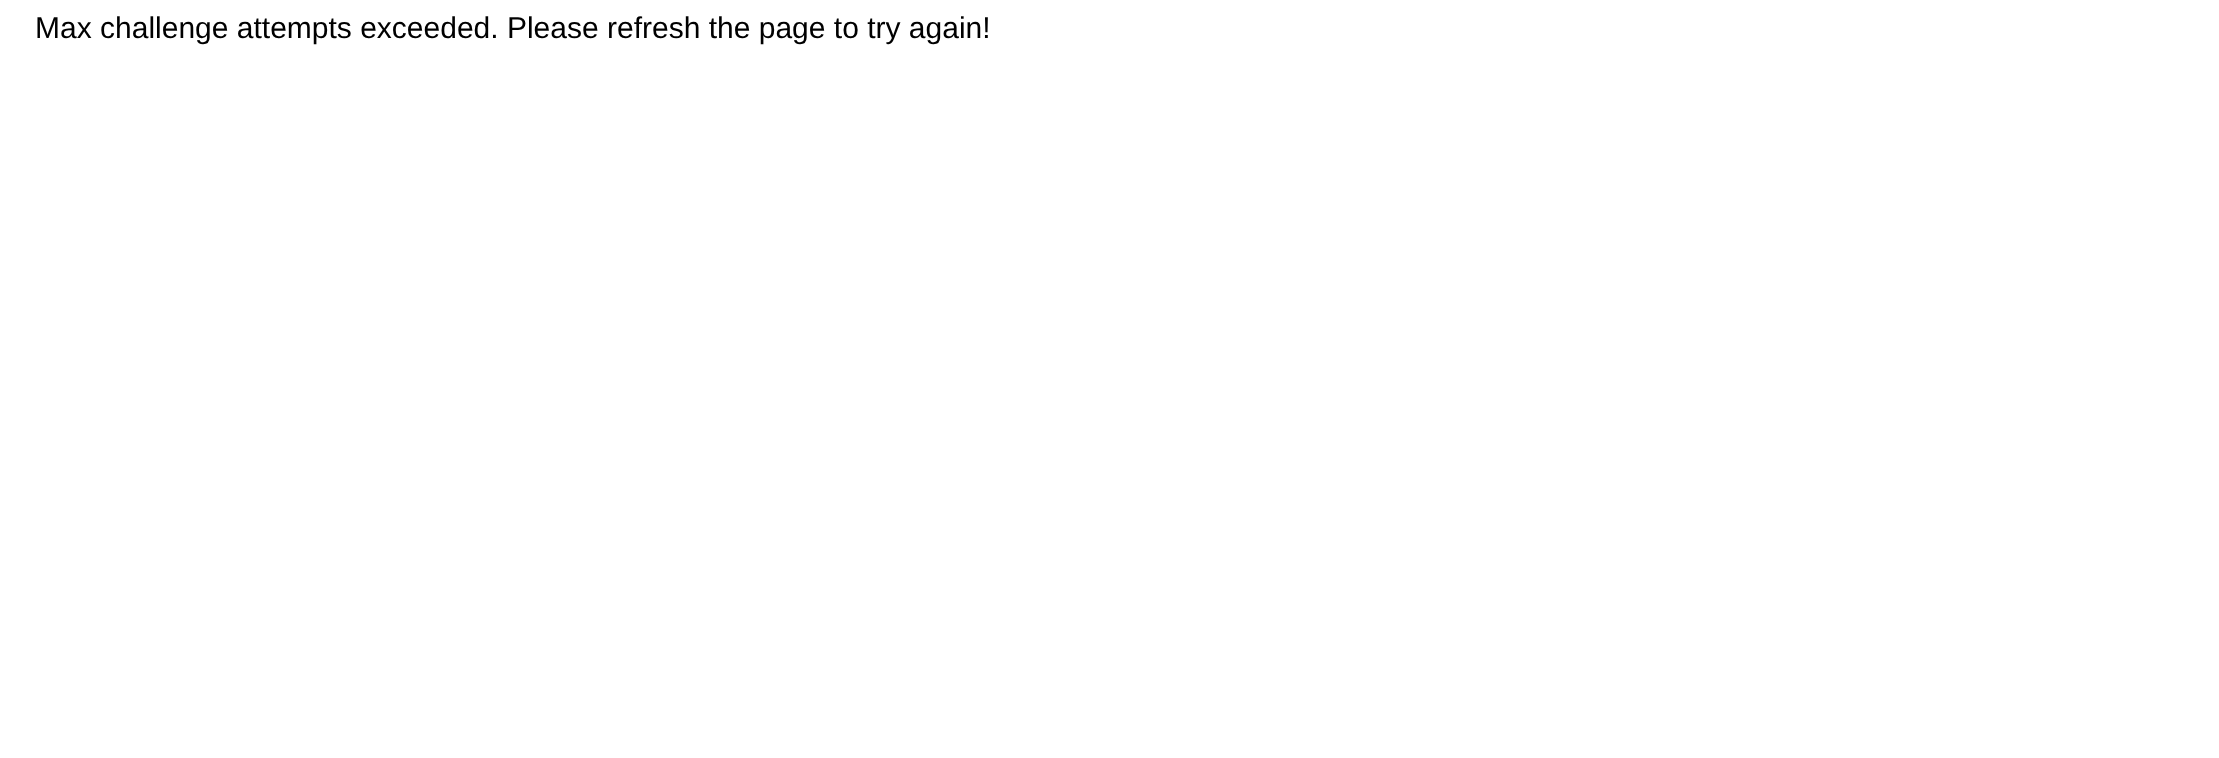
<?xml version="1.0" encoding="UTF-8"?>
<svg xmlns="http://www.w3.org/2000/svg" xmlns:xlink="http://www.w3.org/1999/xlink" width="2219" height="758">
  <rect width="100%" height="100%" fill="#ffffff" />
  <text x="35" y="38" style="font-family: Liberation Sans; font-size: 30px; fill: #000000">Max challenge attempts exceeded. Please refresh the page to try again!</text>
</svg>
